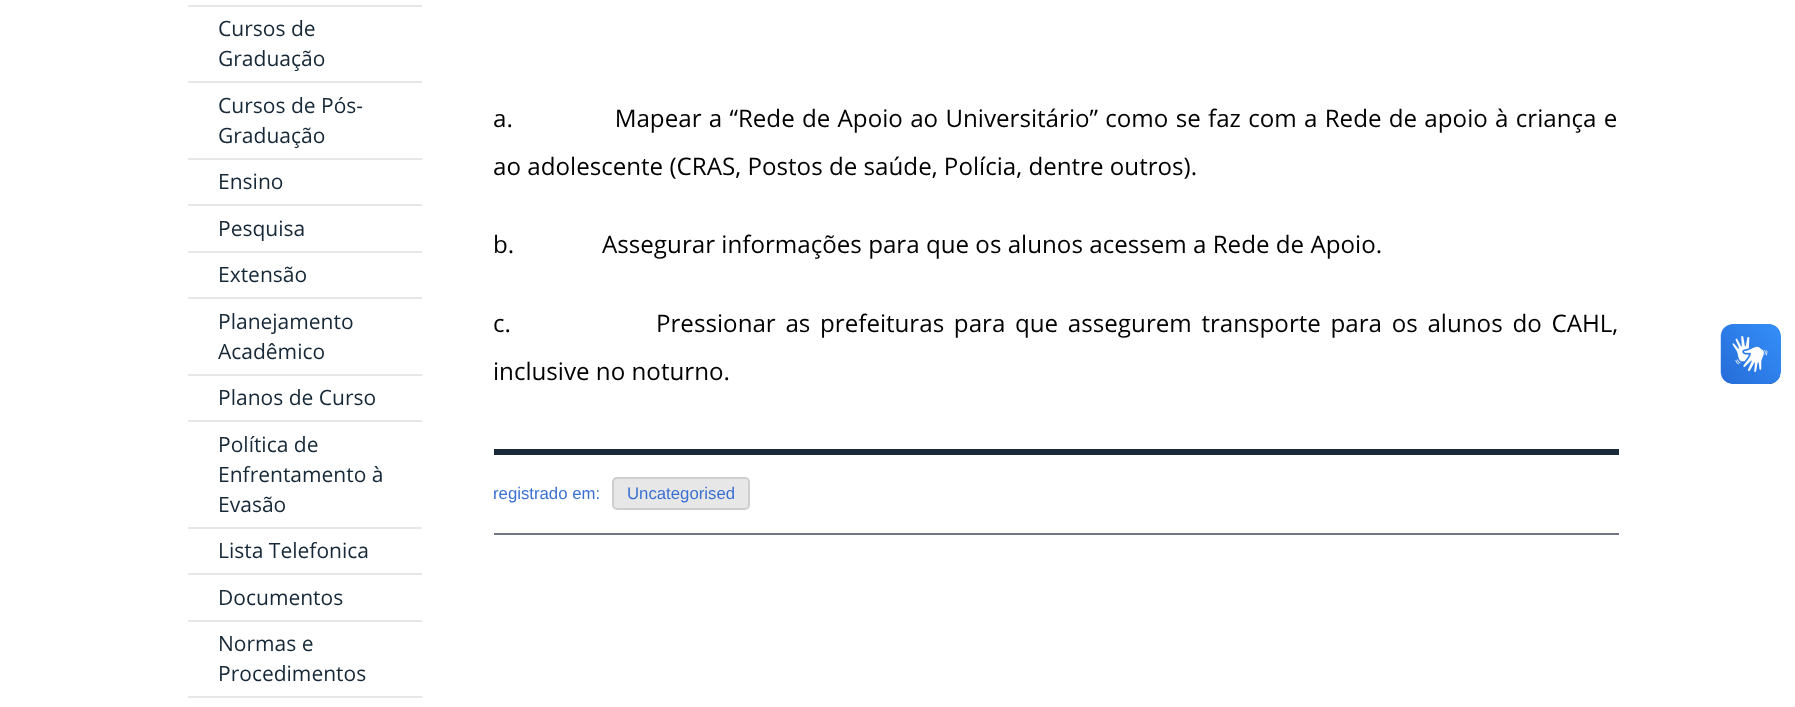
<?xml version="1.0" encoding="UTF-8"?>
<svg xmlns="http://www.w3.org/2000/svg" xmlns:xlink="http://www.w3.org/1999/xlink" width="1795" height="707">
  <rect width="100%" height="100%" fill="#ffffff" />
  <rect x="188" y="5" width="234" height="2" fill="#e8e7e7" />
  <rect x="188" y="81" width="234" height="2" fill="#e8e7e7" />
  <rect x="188" y="158" width="234" height="2" fill="#e8e7e7" />
  <rect x="188" y="204" width="234" height="2" fill="#e8e7e7" />
  <rect x="188" y="251" width="234" height="2" fill="#e8e7e7" />
  <rect x="188" y="297" width="234" height="2" fill="#e8e7e7" />
  <rect x="188" y="374" width="234" height="2" fill="#e8e7e7" />
  <rect x="188" y="420" width="234" height="2" fill="#e8e7e7" />
  <rect x="188" y="527" width="234" height="2" fill="#e8e7e7" />
  <rect x="188" y="573" width="234" height="2" fill="#e8e7e7" />
  <rect x="188" y="620" width="234" height="2" fill="#e8e7e7" />
  <rect x="188" y="696" width="234" height="2" fill="#e8e7e7" />
  <rect x="494" y="449" width="1125" height="6" fill="#1a2a39" />
  <rect x="494" y="533" width="1125" height="2" fill="#717782" />
  <rect x="613" y="478" width="136" height="31" rx="4" fill="#e8e7e7" stroke="#cfcdcd" stroke-width="2" />
  <image x="1720" y="324" width="61" height="60" xlink:href="image1.png" />
  <image x="1721" y="324" width="60" height="60" xlink:href="image2.png" />
  <text x="218" y="36" style="font-family: Open Sans; font-size: 21px; fill: #172938">Cursos de</text>
  <text x="218" y="66" style="font-family: Open Sans; font-size: 21px; fill: #172938">Graduação</text>
  <text x="218" y="113" style="font-family: Open Sans; font-size: 21px; fill: #172938">Cursos de Pós-</text>
  <text x="218" y="143" style="font-family: Open Sans; font-size: 21px; fill: #172938">Graduação</text>
  <text x="218" y="189" style="font-family: Open Sans; font-size: 21px; fill: #172938">Ensino</text>
  <text x="218" y="236" style="font-family: Open Sans; font-size: 21px; fill: #172938">Pesquisa</text>
  <text x="218" y="282" style="font-family: Open Sans; font-size: 21px; fill: #172938">Extensão</text>
  <text x="218" y="329" style="font-family: Open Sans; font-size: 21px; fill: #172938">Planejamento</text>
  <text x="218" y="359" style="font-family: Open Sans; font-size: 21px; fill: #172938">Acadêmico</text>
  <text x="218" y="405" style="font-family: Open Sans; font-size: 21px; fill: #172938">Planos de Curso</text>
  <text x="218" y="452" style="font-family: Open Sans; font-size: 21px; fill: #172938">Política de</text>
  <text x="218" y="482" style="font-family: Open Sans; font-size: 21px; fill: #172938">Enfrentamento à</text>
  <text x="218" y="512" style="font-family: Open Sans; font-size: 21px; fill: #172938">Evasão</text>
  <text x="218" y="558" style="font-family: Open Sans; font-size: 21px; fill: #172938">Lista Telefonica</text>
  <text x="218" y="605" style="font-family: Open Sans; font-size: 21px; fill: #172938">Documentos</text>
  <text x="218" y="651" style="font-family: Open Sans; font-size: 21px; fill: #172938">Normas e</text>
  <text x="218" y="681" style="font-family: Open Sans; font-size: 21px; fill: #172938">Procedimentos</text>
  <text x="493" y="127" word-spacing="1" style="font-family: Open Sans; font-size: 24.15px; fill: #000000" xml:space="preserve">a.              Mapear a “Rede de Apoio ao Universitário” como se faz com a Rede de apoio à criança e</text>
  <text x="493" y="175" style="font-family: Open Sans; font-size: 24.15px; fill: #000000">ao adolescente (CRAS, Postos de saúde, Polícia, dentre outros).</text>
  <text x="493" y="253" style="font-family: Open Sans; font-size: 24.15px; fill: #000000" xml:space="preserve">b.              Assegurar informações para que os alunos acessem a Rede de Apoio.</text>
  <text x="493" y="332" word-spacing="3.4" style="font-family: Open Sans; font-size: 24.15px; fill: #000000" xml:space="preserve">c.               Pressionar as prefeituras para que assegurem transporte para os alunos do CAHL,</text>
  <text x="493" y="380" style="font-family: Open Sans; font-size: 24.15px; fill: #000000">inclusive no noturno.</text>
  <text x="493" y="499" style="font-family: Liberation Sans; font-size: 16.75px; fill: #3a70d1">registrado em:</text>
  <text x="627" y="499" style="font-family: Liberation Sans; font-size: 16.75px; fill: #3a70d1">Uncategorised</text>
</svg>
